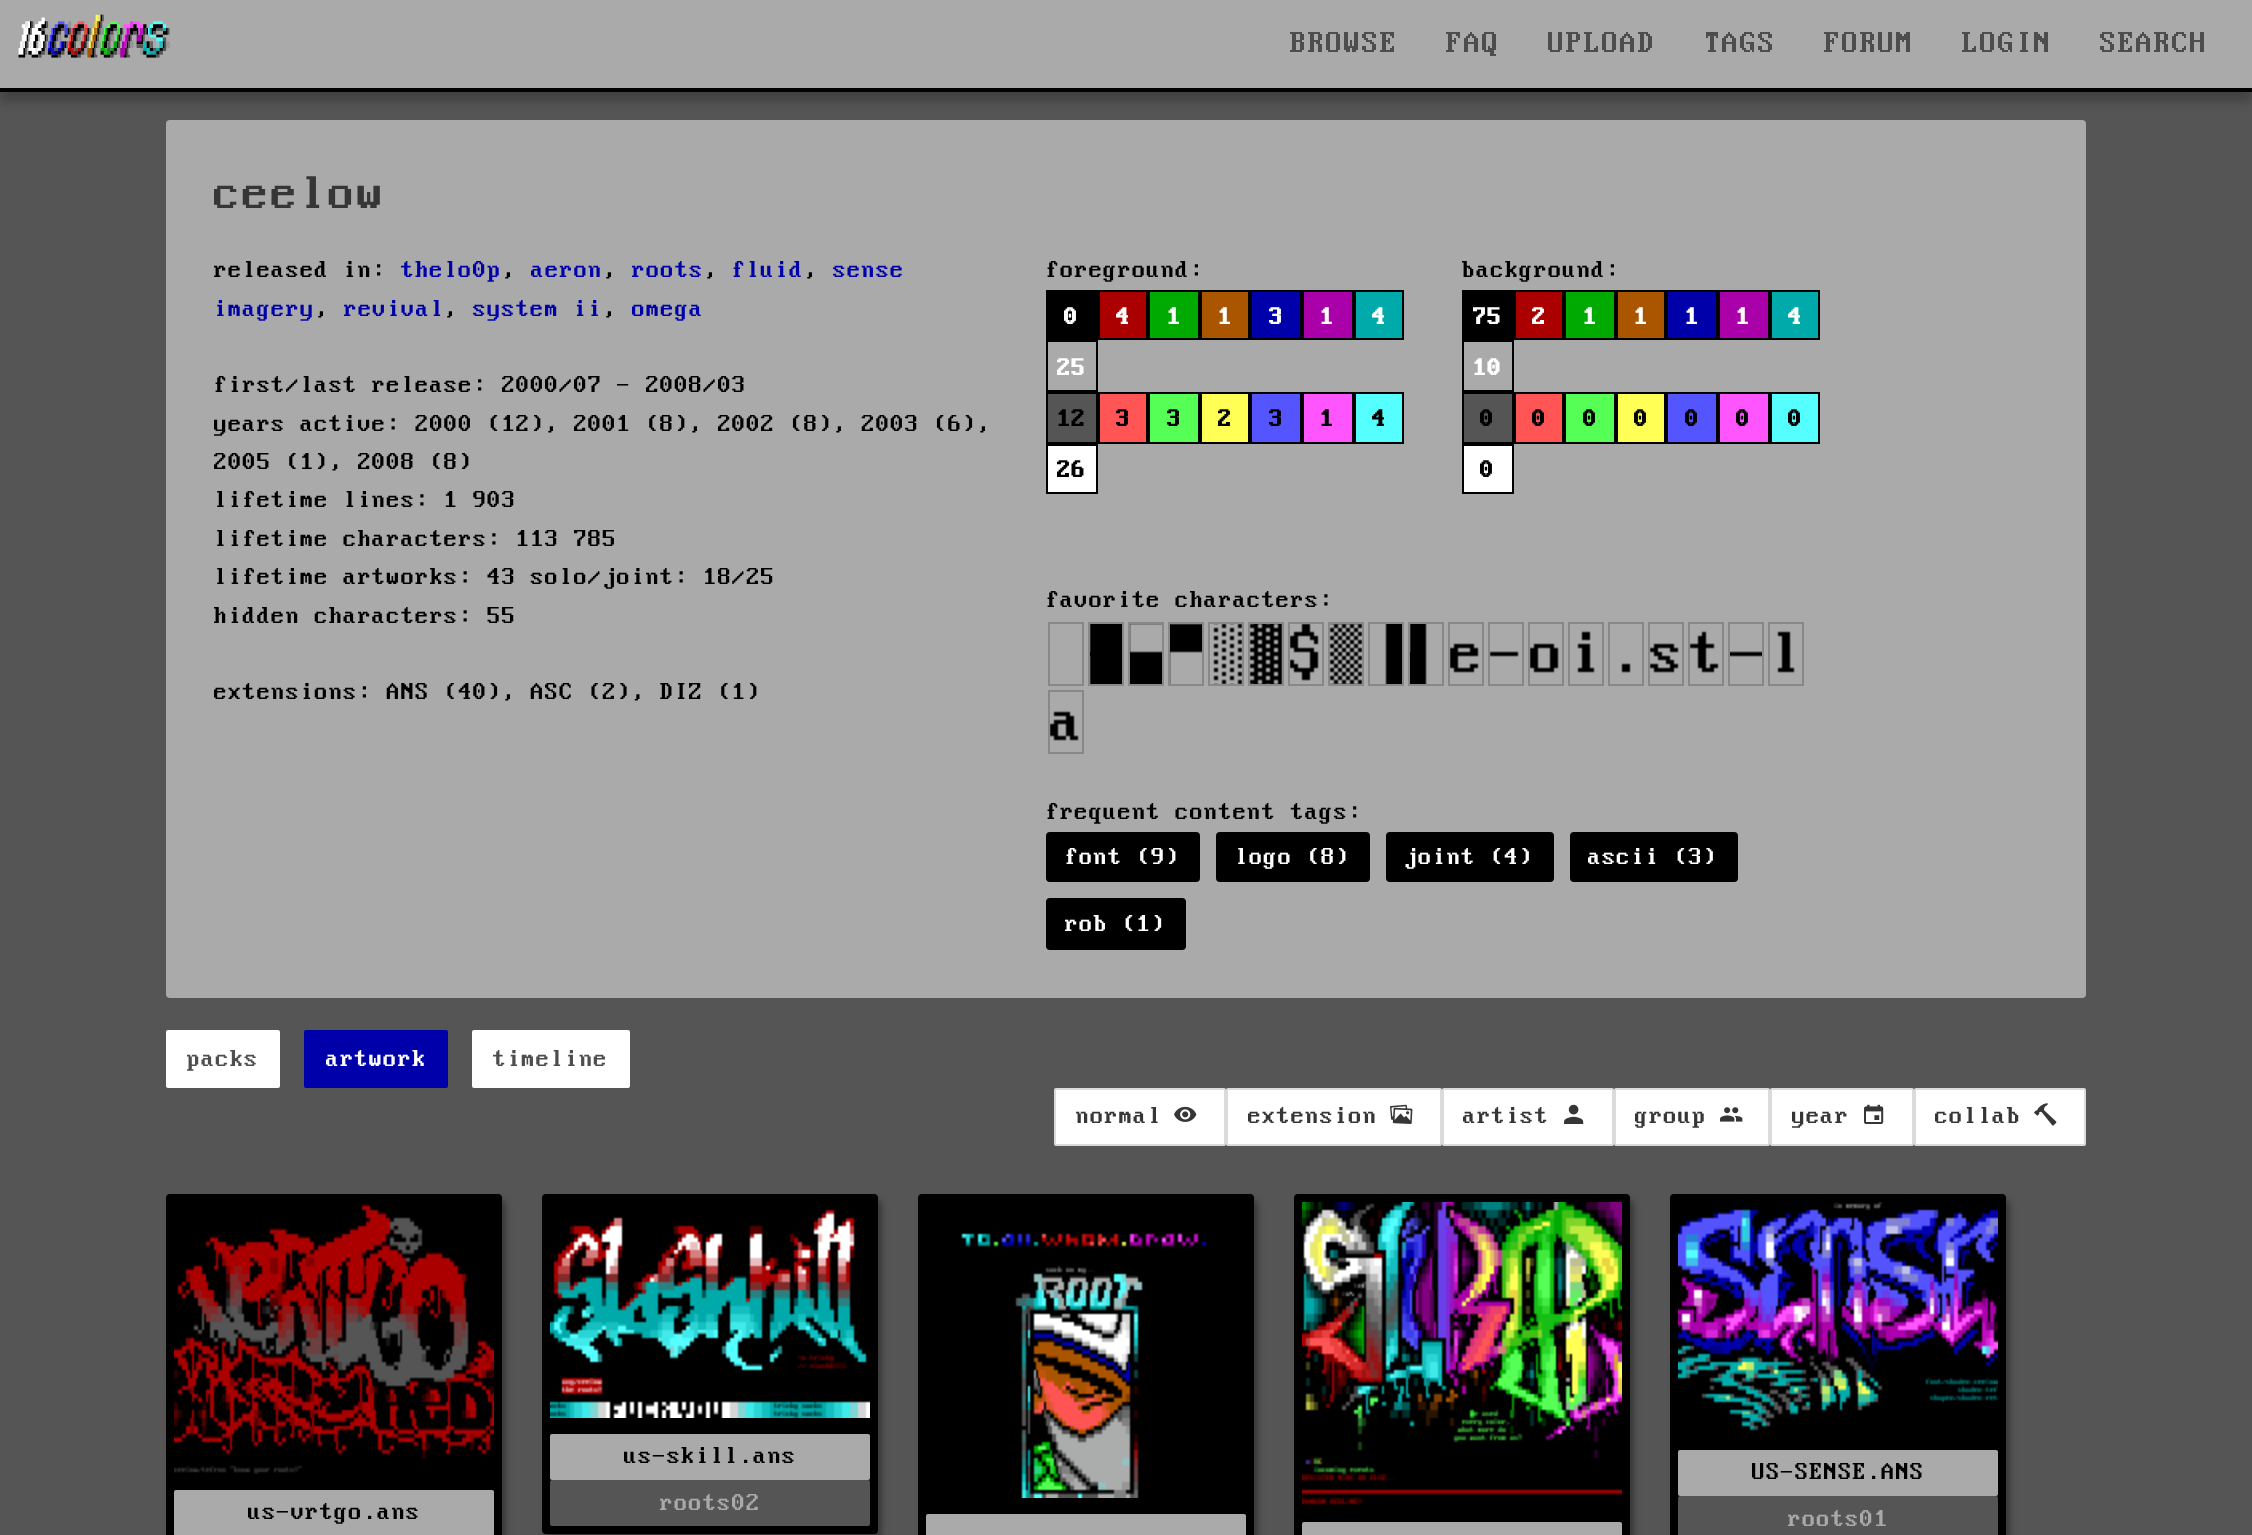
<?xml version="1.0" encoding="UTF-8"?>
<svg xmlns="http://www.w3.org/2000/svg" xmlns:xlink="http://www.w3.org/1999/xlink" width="2252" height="1535">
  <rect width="100%" height="100%" fill="#555555" />
  <rect y="10" width="2252" height="92" fill="#222222" fill-opacity="0.35" filter="blur(5px)" />
  <rect width="2252" height="88" fill="#aaaaaa" />
  <rect y="88" width="2252" height="4" fill="#000000" />
  <image x="18" y="14" width="152" height="44" xlink:href="image1.png" />
  <rect x="166" y="120" width="1920" height="878" rx="4" fill="#aaaaaa" />
  <rect x="1046" y="290" width="52" height="50" fill="#000000" />
  <rect x="1099" y="291" width="48" height="48" fill="#aa0000" stroke="#000000" stroke-width="2" />
  <rect x="1149" y="291" width="50" height="48" fill="#00aa00" stroke="#000000" stroke-width="2" />
  <rect x="1201" y="291" width="48" height="48" fill="#aa5500" stroke="#000000" stroke-width="2" />
  <rect x="1251" y="291" width="50" height="48" fill="#0000aa" stroke="#000000" stroke-width="2" />
  <rect x="1303" y="291" width="50" height="48" fill="#aa00aa" stroke="#000000" stroke-width="2" />
  <rect x="1355" y="291" width="48" height="48" fill="#00aaaa" stroke="#000000" stroke-width="2" />
  <rect x="1047" y="341" width="50" height="50" fill="none" stroke="#000000" stroke-width="2" />
  <rect x="1047" y="393" width="50" height="50" fill="#555555" stroke="#000000" stroke-width="2" />
  <rect x="1099" y="393" width="48" height="50" fill="#ff5555" stroke="#000000" stroke-width="2" />
  <rect x="1149" y="393" width="50" height="50" fill="#55ff55" stroke="#000000" stroke-width="2" />
  <rect x="1201" y="393" width="48" height="50" fill="#ffff55" stroke="#000000" stroke-width="2" />
  <rect x="1251" y="393" width="50" height="50" fill="#5555ff" stroke="#000000" stroke-width="2" />
  <rect x="1303" y="393" width="50" height="50" fill="#ff55ff" stroke="#000000" stroke-width="2" />
  <rect x="1355" y="393" width="48" height="50" fill="#55ffff" stroke="#000000" stroke-width="2" />
  <rect x="1047" y="445" width="50" height="48" fill="#ffffff" stroke="#000000" stroke-width="2" />
  <rect x="1462" y="290" width="52" height="50" fill="#000000" />
  <rect x="1515" y="291" width="48" height="48" fill="#aa0000" stroke="#000000" stroke-width="2" />
  <rect x="1565" y="291" width="50" height="48" fill="#00aa00" stroke="#000000" stroke-width="2" />
  <rect x="1617" y="291" width="48" height="48" fill="#aa5500" stroke="#000000" stroke-width="2" />
  <rect x="1667" y="291" width="50" height="48" fill="#0000aa" stroke="#000000" stroke-width="2" />
  <rect x="1719" y="291" width="50" height="48" fill="#aa00aa" stroke="#000000" stroke-width="2" />
  <rect x="1771" y="291" width="48" height="48" fill="#00aaaa" stroke="#000000" stroke-width="2" />
  <rect x="1463" y="341" width="50" height="50" fill="none" stroke="#000000" stroke-width="2" />
  <rect x="1463" y="393" width="50" height="50" fill="#555555" stroke="#000000" stroke-width="2" />
  <rect x="1515" y="393" width="48" height="50" fill="#ff5555" stroke="#000000" stroke-width="2" />
  <rect x="1565" y="393" width="50" height="50" fill="#55ff55" stroke="#000000" stroke-width="2" />
  <rect x="1617" y="393" width="48" height="50" fill="#ffff55" stroke="#000000" stroke-width="2" />
  <rect x="1667" y="393" width="50" height="50" fill="#5555ff" stroke="#000000" stroke-width="2" />
  <rect x="1719" y="393" width="50" height="50" fill="#ff55ff" stroke="#000000" stroke-width="2" />
  <rect x="1771" y="393" width="48" height="50" fill="#55ffff" stroke="#000000" stroke-width="2" />
  <rect x="1463" y="445" width="50" height="48" fill="#ffffff" stroke="#000000" stroke-width="2" />
  <rect x="1049" y="623" width="34" height="62" fill="none" stroke="#888888" stroke-width="2" />
  <image x="1090" y="624" width="32" height="60" xlink:href="image2.png" />
  <rect x="1089" y="623" width="34" height="62" fill="none" stroke="#888888" stroke-width="2" />
  <image x="1130" y="624" width="32" height="60" xlink:href="image3.png" />
  <rect x="1129" y="623" width="34" height="62" fill="none" stroke="#888888" stroke-width="2" />
  <image x="1170" y="624" width="32" height="60" xlink:href="image4.png" />
  <rect x="1169" y="623" width="34" height="62" fill="none" stroke="#888888" stroke-width="2" />
  <image x="1213" y="624" width="29" height="60" xlink:href="image5.png" />
  <rect x="1209" y="623" width="34" height="62" fill="none" stroke="#888888" stroke-width="2" />
  <image x="1250" y="624" width="32" height="60" xlink:href="image6.png" />
  <rect x="1249" y="623" width="34" height="62" fill="none" stroke="#888888" stroke-width="2" />
  <image x="1290" y="624" width="29" height="57" xlink:href="image7.png" />
  <rect x="1289" y="623" width="34" height="62" fill="none" stroke="#888888" stroke-width="2" />
  <image x="1330" y="624" width="32" height="60" xlink:href="image8.png" />
  <rect x="1329" y="623" width="34" height="62" fill="none" stroke="#888888" stroke-width="2" />
  <image x="1385" y="624" width="17" height="60" xlink:href="image9.png" />
  <rect x="1369" y="623" width="34" height="62" fill="none" stroke="#888888" stroke-width="2" />
  <image x="1410" y="624" width="17" height="60" xlink:href="image10.png" />
  <rect x="1409" y="623" width="34" height="62" fill="none" stroke="#888888" stroke-width="2" />
  <image x="1450" y="643" width="29" height="30" xlink:href="image11.png" />
  <rect x="1449" y="623" width="34" height="62" fill="none" stroke="#888888" stroke-width="2" />
  <image x="1490" y="651" width="29" height="6" xlink:href="image12.png" />
  <rect x="1489" y="623" width="34" height="62" fill="none" stroke="#888888" stroke-width="2" />
  <image x="1530" y="643" width="29" height="30" xlink:href="image13.png" />
  <rect x="1529" y="623" width="34" height="62" fill="none" stroke="#888888" stroke-width="2" />
  <image x="1577" y="631" width="18" height="42" xlink:href="image14.png" />
  <rect x="1569" y="623" width="34" height="62" fill="none" stroke="#888888" stroke-width="2" />
  <image x="1621" y="663" width="10" height="10" xlink:href="image15.png" />
  <rect x="1609" y="623" width="34" height="62" fill="none" stroke="#888888" stroke-width="2" />
  <image x="1650" y="643" width="29" height="30" xlink:href="image16.png" />
  <rect x="1649" y="623" width="34" height="62" fill="none" stroke="#888888" stroke-width="2" />
  <image x="1690" y="631" width="29" height="42" xlink:href="image17.png" />
  <rect x="1689" y="623" width="34" height="62" fill="none" stroke="#888888" stroke-width="2" />
  <image x="1730" y="651" width="32" height="6" xlink:href="image18.png" />
  <rect x="1729" y="623" width="34" height="62" fill="none" stroke="#888888" stroke-width="2" />
  <image x="1777" y="631" width="18" height="42" xlink:href="image19.png" />
  <rect x="1769" y="623" width="34" height="62" fill="none" stroke="#888888" stroke-width="2" />
  <image x="1050" y="711" width="29" height="30" xlink:href="image20.png" />
  <rect x="1049" y="691" width="34" height="62" fill="none" stroke="#888888" stroke-width="2" />
  <rect x="1046" y="832" width="154" height="50" rx="4" fill="#000000" />
  <rect x="1216" y="832" width="154" height="50" rx="4" fill="#000000" />
  <rect x="1386" y="832" width="168" height="50" rx="4" fill="#000000" />
  <rect x="1570" y="832" width="168" height="50" rx="4" fill="#000000" />
  <rect x="1046" y="898" width="140" height="52" rx="4" fill="#000000" />
  <rect x="166" y="1030" width="114" height="58" rx="2" fill="#ffffff" />
  <rect x="304" y="1030" width="144" height="58" rx="2" fill="#0000aa" />
  <rect x="472" y="1030" width="158" height="58" rx="2" fill="#ffffff" />
  <rect x="1055" y="1089" width="170" height="56" rx="1" fill="#ffffff" stroke="#dbdbdb" stroke-width="2" />
  <image x="1174" y="1106" width="23" height="16" xlink:href="image21.png" />
  <rect x="1227" y="1089" width="214" height="56" rx="1" fill="#ffffff" stroke="#dbdbdb" stroke-width="2" />
  <image x="1390" y="1104" width="23" height="20" xlink:href="image22.png" />
  <rect x="1443" y="1089" width="170" height="56" rx="1" fill="#ffffff" stroke="#dbdbdb" stroke-width="2" />
  <image x="1564" y="1104" width="20" height="20" xlink:href="image23.png" />
  <rect x="1615" y="1089" width="154" height="56" rx="1" fill="#ffffff" stroke="#dbdbdb" stroke-width="2" />
  <image x="1720" y="1107" width="23" height="15" xlink:href="image24.png" />
  <rect x="1771" y="1089" width="142" height="56" rx="1" fill="#ffffff" stroke="#dbdbdb" stroke-width="2" />
  <image x="1864" y="1104" width="20" height="20" xlink:href="image25.png" />
  <rect x="1915" y="1089" width="170" height="56" rx="1" fill="#ffffff" stroke="#dbdbdb" stroke-width="2" />
  <image x="2034" y="1103" width="23" height="23" xlink:href="image26.png" />
  <rect x="170" y="1200" width="336" height="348" rx="4" fill="#1b1b1b" fill-opacity="0.5" filter="blur(3px)" />
  <rect x="167" y="1195" width="334" height="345" rx="3" fill="#000000" stroke="#000000" stroke-width="2" />
  <image x="174" y="1203" width="320" height="271" xlink:href="image27.png" />
  <rect x="174" y="1490" width="320" height="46" rx="2" fill="#aaaaaa" />
  <rect x="546" y="1200" width="336" height="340" rx="4" fill="#1b1b1b" fill-opacity="0.5" filter="blur(3px)" />
  <rect x="543" y="1195" width="334" height="338" rx="3" fill="#000000" stroke="#000000" stroke-width="2" />
  <image x="550" y="1209" width="320" height="209" xlink:href="image28.png" />
  <rect x="550" y="1434" width="320" height="46" rx="2" fill="#aaaaaa" />
  <rect x="550" y="1480" width="320" height="46" rx="2" fill="#555555" />
  <rect x="922" y="1200" width="336" height="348" rx="4" fill="#1b1b1b" fill-opacity="0.5" filter="blur(3px)" />
  <rect x="919" y="1195" width="334" height="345" rx="3" fill="#000000" stroke="#000000" stroke-width="2" />
  <image x="961" y="1233" width="246" height="265" xlink:href="image29.png" />
  <rect x="926" y="1514" width="320" height="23" rx="2" fill="#aaaaaa" />
  <rect x="1298" y="1200" width="336" height="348" rx="4" fill="#1b1b1b" fill-opacity="0.5" filter="blur(3px)" />
  <rect x="1295" y="1195" width="334" height="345" rx="3" fill="#000000" stroke="#000000" stroke-width="2" />
  <image x="1302" y="1202" width="320" height="303" xlink:href="image30.png" />
  <rect x="1302" y="1522" width="320" height="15" rx="2" fill="#aaaaaa" />
  <rect x="1674" y="1200" width="336" height="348" rx="4" fill="#1b1b1b" fill-opacity="0.5" filter="blur(3px)" />
  <rect x="1671" y="1195" width="334" height="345" rx="3" fill="#000000" stroke="#000000" stroke-width="2" />
  <image x="1678" y="1202" width="320" height="229" xlink:href="image31.png" />
  <rect x="1678" y="1450" width="320" height="46" rx="2" fill="#aaaaaa" />
  <rect x="1678" y="1496" width="320" height="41" rx="2" fill="#555555" />
  <text x="1290" y="52" style="font-family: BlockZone; font-size: 32px; fill: #4d4d4d">BROWSE</text>
  <text x="1446" y="52" style="font-family: BlockZone; font-size: 32px; fill: #4d4d4d">FAQ</text>
  <text x="1548" y="52" style="font-family: BlockZone; font-size: 32px; fill: #4d4d4d">UPLOAD</text>
  <text x="1704" y="52" style="font-family: BlockZone; font-size: 32px; fill: #4d4d4d">TAGS</text>
  <text x="1824" y="52" style="font-family: BlockZone; font-size: 32px; fill: #4d4d4d">FORUM</text>
  <text x="1962" y="52" style="font-family: BlockZone; font-size: 32px; fill: #4d4d4d">LOGIN</text>
  <text x="2100" y="52" style="font-family: BlockZone; font-size: 32px; fill: #4d4d4d">SEARCH</text>
  <text x="214" y="208" style="font-family: BlockZone; font-size: 51px; fill: #363636">ceelow</text>
  <text x="214" y="277" style="font-family: BlockZone; font-size: 25.6px; fill: #000000">released in:</text>
  <text x="401" y="277" style="font-family: BlockZone; font-size: 25.6px; fill: #0000aa">thelo0p</text>
  <text x="502" y="277" style="font-family: BlockZone; font-size: 25.6px; fill: #000000">,</text>
  <text x="531" y="277" style="font-family: BlockZone; font-size: 25.6px; fill: #0000aa">aeron</text>
  <text x="603" y="277" style="font-family: BlockZone; font-size: 25.6px; fill: #000000">,</text>
  <text x="632" y="277" style="font-family: BlockZone; font-size: 25.6px; fill: #0000aa">roots</text>
  <text x="704" y="277" style="font-family: BlockZone; font-size: 25.6px; fill: #000000">,</text>
  <text x="732" y="277" style="font-family: BlockZone; font-size: 25.6px; fill: #0000aa">fluid</text>
  <text x="804" y="277" style="font-family: BlockZone; font-size: 25.6px; fill: #000000">,</text>
  <text x="833" y="277" style="font-family: BlockZone; font-size: 25.6px; fill: #0000aa">sense</text>
  <text x="214" y="316" style="font-family: BlockZone; font-size: 25.6px; fill: #0000aa">imagery</text>
  <text x="315" y="316" style="font-family: BlockZone; font-size: 25.6px; fill: #000000">,</text>
  <text x="344" y="316" style="font-family: BlockZone; font-size: 25.6px; fill: #0000aa">revival</text>
  <text x="444" y="316" style="font-family: BlockZone; font-size: 25.6px; fill: #000000">,</text>
  <text x="473" y="316" style="font-family: BlockZone; font-size: 25.6px; fill: #0000aa">system ii</text>
  <text x="603" y="316" style="font-family: BlockZone; font-size: 25.6px; fill: #000000">,</text>
  <text x="632" y="316" style="font-family: BlockZone; font-size: 25.6px; fill: #0000aa">omega</text>
  <text x="214" y="392" style="font-family: BlockZone; font-size: 25.6px; fill: #000000">first/last release: 2000/07 - 2008/03</text>
  <text x="214" y="431" style="font-family: BlockZone; font-size: 25.6px; fill: #000000">years active: 2000 (12), 2001 (8), 2002 (8), 2003 (6),</text>
  <text x="214" y="469" style="font-family: BlockZone; font-size: 25.6px; fill: #000000">2005 (1), 2008 (8)</text>
  <text x="214" y="507" style="font-family: BlockZone; font-size: 25.6px; fill: #000000">lifetime lines: 1 903</text>
  <text x="214" y="546" style="font-family: BlockZone; font-size: 25.6px; fill: #000000">lifetime characters: 113 785</text>
  <text x="214" y="584" style="font-family: BlockZone; font-size: 25.6px; fill: #000000">lifetime artworks: 43 solo/joint: 18/25</text>
  <text x="214" y="623" style="font-family: BlockZone; font-size: 25.6px; fill: #000000">hidden characters: 55</text>
  <text x="214" y="699" style="font-family: BlockZone; font-size: 25.6px; fill: #000000">extensions: ANS (40), ASC (2), DIZ (1)</text>
  <text x="1046" y="277" style="font-family: BlockZone; font-size: 25.6px; fill: #000000">foreground:</text>
  <text x="1064" y="324" style="font-family: BlockZone; font-size: 25.6px; font-weight: bold; fill: #ffffff">0</text>
  <text x="1116" y="324" style="font-family: BlockZone; font-size: 25.6px; font-weight: bold; fill: #ffffff">4</text>
  <text x="1167" y="324" style="font-family: BlockZone; font-size: 25.6px; font-weight: bold; fill: #ffffff">1</text>
  <text x="1218" y="324" style="font-family: BlockZone; font-size: 25.6px; font-weight: bold; fill: #ffffff">1</text>
  <text x="1269" y="324" style="font-family: BlockZone; font-size: 25.6px; font-weight: bold; fill: #ffffff">3</text>
  <text x="1320" y="324" style="font-family: BlockZone; font-size: 25.6px; font-weight: bold; fill: #ffffff">1</text>
  <text x="1372" y="324" style="font-family: BlockZone; font-size: 25.6px; font-weight: bold; fill: #ffffff">4</text>
  <text x="1057" y="375" style="font-family: BlockZone; font-size: 25.6px; font-weight: bold; fill: #ffffff">25</text>
  <text x="1057" y="426" style="font-family: BlockZone; font-size: 25.6px; font-weight: bold; fill: #000000">12</text>
  <text x="1116" y="426" style="font-family: BlockZone; font-size: 25.6px; font-weight: bold; fill: #000000">3</text>
  <text x="1167" y="426" style="font-family: BlockZone; font-size: 25.6px; font-weight: bold; fill: #000000">3</text>
  <text x="1218" y="426" style="font-family: BlockZone; font-size: 25.6px; font-weight: bold; fill: #000000">2</text>
  <text x="1269" y="426" style="font-family: BlockZone; font-size: 25.6px; font-weight: bold; fill: #000000">3</text>
  <text x="1320" y="426" style="font-family: BlockZone; font-size: 25.6px; font-weight: bold; fill: #000000">1</text>
  <text x="1372" y="426" style="font-family: BlockZone; font-size: 25.6px; font-weight: bold; fill: #000000">4</text>
  <text x="1057" y="477" style="font-family: BlockZone; font-size: 25.6px; font-weight: bold; fill: #000000">26</text>
  <text x="1462" y="277" style="font-family: BlockZone; font-size: 25.6px; fill: #000000">background:</text>
  <text x="1473" y="324" style="font-family: BlockZone; font-size: 25.6px; font-weight: bold; fill: #ffffff">75</text>
  <text x="1532" y="324" style="font-family: BlockZone; font-size: 25.6px; font-weight: bold; fill: #ffffff">2</text>
  <text x="1583" y="324" style="font-family: BlockZone; font-size: 25.6px; font-weight: bold; fill: #ffffff">1</text>
  <text x="1634" y="324" style="font-family: BlockZone; font-size: 25.6px; font-weight: bold; fill: #ffffff">1</text>
  <text x="1685" y="324" style="font-family: BlockZone; font-size: 25.6px; font-weight: bold; fill: #ffffff">1</text>
  <text x="1736" y="324" style="font-family: BlockZone; font-size: 25.6px; font-weight: bold; fill: #ffffff">1</text>
  <text x="1788" y="324" style="font-family: BlockZone; font-size: 25.6px; font-weight: bold; fill: #ffffff">4</text>
  <text x="1473" y="375" style="font-family: BlockZone; font-size: 25.6px; font-weight: bold; fill: #ffffff">10</text>
  <text x="1480" y="426" style="font-family: BlockZone; font-size: 25.6px; font-weight: bold; fill: #000000">0</text>
  <text x="1532" y="426" style="font-family: BlockZone; font-size: 25.6px; font-weight: bold; fill: #000000">0</text>
  <text x="1583" y="426" style="font-family: BlockZone; font-size: 25.6px; font-weight: bold; fill: #000000">0</text>
  <text x="1634" y="426" style="font-family: BlockZone; font-size: 25.6px; font-weight: bold; fill: #000000">0</text>
  <text x="1685" y="426" style="font-family: BlockZone; font-size: 25.6px; font-weight: bold; fill: #000000">0</text>
  <text x="1736" y="426" style="font-family: BlockZone; font-size: 25.6px; font-weight: bold; fill: #000000">0</text>
  <text x="1788" y="426" style="font-family: BlockZone; font-size: 25.6px; font-weight: bold; fill: #000000">0</text>
  <text x="1480" y="477" style="font-family: BlockZone; font-size: 25.6px; font-weight: bold; fill: #000000">0</text>
  <text x="1046" y="607" style="font-family: BlockZone; font-size: 25.6px; fill: #000000">favorite characters:</text>
  <text x="1046" y="819" style="font-family: BlockZone; font-size: 25.6px; fill: #000000">frequent content tags:</text>
  <text x="1065" y="864" style="font-family: BlockZone; font-size: 25.6px; fill: #ffffff">font (9)</text>
  <text x="1235" y="864" style="font-family: BlockZone; font-size: 25.6px; fill: #ffffff">logo (8)</text>
  <text x="1404" y="864" style="font-family: BlockZone; font-size: 25.6px; fill: #ffffff">joint (4)</text>
  <text x="1588" y="864" style="font-family: BlockZone; font-size: 25.6px; fill: #ffffff">ascii (3)</text>
  <text x="1065" y="931" style="font-family: BlockZone; font-size: 25.6px; fill: #ffffff">rob (1)</text>
  <text x="187" y="1066" style="font-family: BlockZone; font-size: 25.6px; fill: #4d4d4d">packs</text>
  <text x="326" y="1066" style="font-family: BlockZone; font-size: 25.6px; fill: #ffffff">artwork</text>
  <text x="493" y="1066" style="font-family: BlockZone; font-size: 25.6px; fill: #4d4d4d">timeline</text>
  <text x="1076" y="1123" style="font-family: BlockZone; font-size: 25.6px; fill: #363636">normal</text>
  <text x="1248" y="1123" style="font-family: BlockZone; font-size: 25.6px; fill: #363636">extension</text>
  <text x="1463" y="1123" style="font-family: BlockZone; font-size: 25.6px; fill: #363636">artist</text>
  <text x="1635" y="1123" style="font-family: BlockZone; font-size: 25.6px; fill: #363636">group</text>
  <text x="1792" y="1123" style="font-family: BlockZone; font-size: 25.6px; fill: #363636">year</text>
  <text x="1935" y="1123" style="font-family: BlockZone; font-size: 25.6px; fill: #363636">collab</text>
  <text x="248" y="1519" style="font-family: BlockZone; font-size: 25.6px; fill: #000000">us-vrtgo.ans</text>
  <text x="624" y="1463" style="font-family: BlockZone; font-size: 25.6px; fill: #000000">us-skill.ans</text>
  <text x="660" y="1510" style="font-family: BlockZone; font-size: 25.6px; fill: #aaaaaa">roots02</text>
  <text x="1752" y="1479" style="font-family: BlockZone; font-size: 25.6px; fill: #000000">US-SENSE.ANS</text>
  <text x="1788" y="1526" style="font-family: BlockZone; font-size: 25.6px; fill: #aaaaaa">roots01</text>
</svg>
